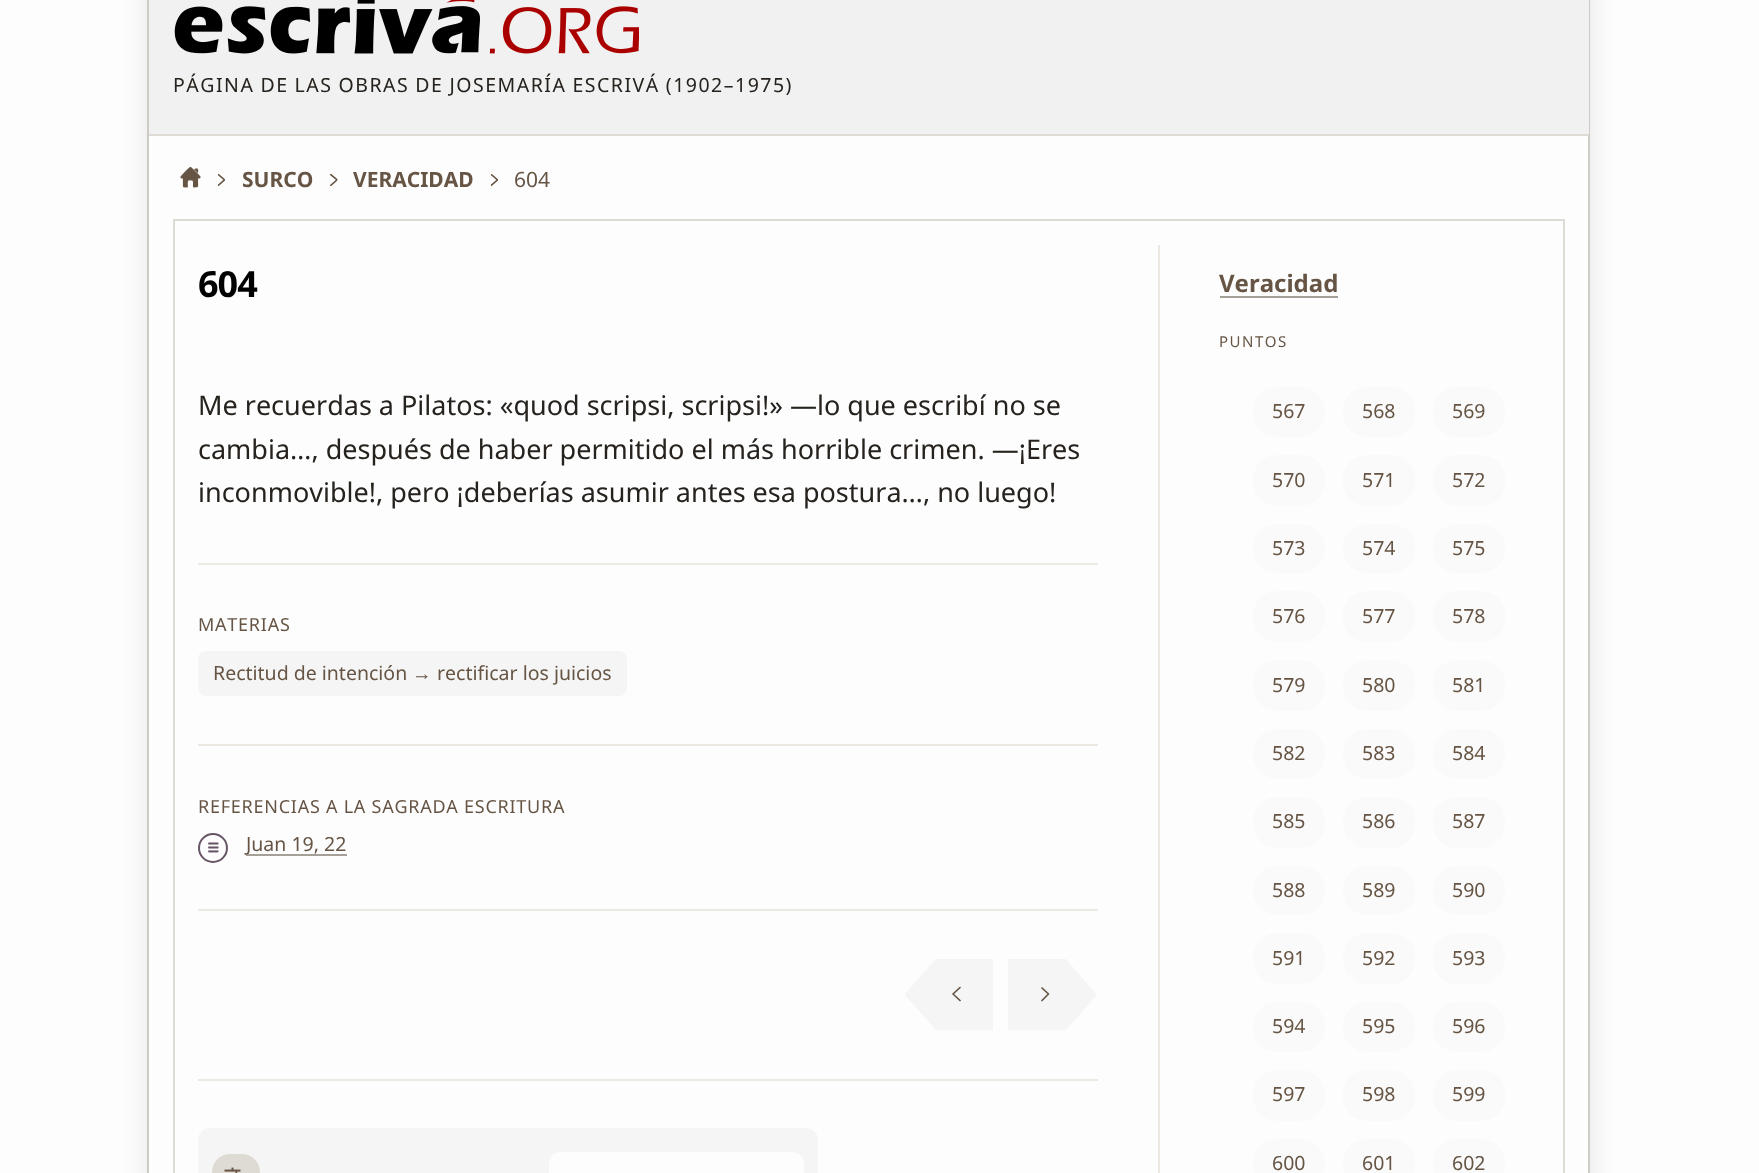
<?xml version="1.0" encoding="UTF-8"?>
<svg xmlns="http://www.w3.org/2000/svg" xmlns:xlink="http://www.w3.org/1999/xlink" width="1759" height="1173">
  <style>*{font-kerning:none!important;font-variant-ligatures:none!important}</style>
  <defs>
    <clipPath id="clip1"><path d="M 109 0 h 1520 v 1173 h -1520 z m 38 -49 h 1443 v 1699 h -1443 z" clip-rule="evenodd" /></clipPath>
    <clipPath id="clip2"><path d="M 961 986.5 v 16 h -9 v -16 z" /></clipPath>
  </defs>
  <rect width="100%" height="100%" fill="#fdfdfd" />
  <g clip-path="url(#clip1)">
    <rect x="143" y="-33" width="1452" height="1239" fill="#000000" fill-opacity="0.07" filter="blur(11px)" />
  </g>
  <rect x="148" y="-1" width="1441" height="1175" fill="none" stroke="#cecbc4" stroke-width="2" />
  <rect x="149" width="1440" height="134" fill="#f1f1f1" />
  <rect x="149" y="134" width="1440" height="2" fill="#dedbd4" />
  <image x="174" y="0" width="465" height="54" xlink:href="image1.png" />
  <image x="180" y="167" width="21" height="21" xlink:href="image2.png" />
  <image x="218" y="174" width="7" height="12" xlink:href="image3.png" />
  <image x="330" y="174" width="8" height="12" xlink:href="image4.png" />
  <image x="491" y="174" width="7" height="12" xlink:href="image3.png" />
  <rect x="174" y="220" width="1390" height="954" fill="none" stroke="#dedbd4" stroke-width="2" />
  <rect x="1158" y="245" width="2" height="928" fill="#ece9e3" />
  <rect x="198" y="563" width="900" height="2" fill="#ece9e3" />
  <rect x="198" y="651" width="429" height="45" rx="8" fill="#f5f5f5" />
  <rect x="198" y="744" width="900" height="2" fill="#ece9e3" />
  <circle cx="213" cy="848" r="14" fill="none" stroke="#665566" stroke-width="2" />
  <image x="208" y="842" width="11" height="11" xlink:href="image5.png" />
  <rect x="246" y="854" width="101" height="2" fill="#a4a098" />
  <rect x="198" y="909" width="900" height="2" fill="#ece9e3" />
  <path d="M 936 959 h 57 v 71 h -57 l -31 -35 v -1 z" fill="#f5f5f5" />
  <g clip-path="url(#clip2)">
    <path d="M 960 1000.5 l -7 -6.5 l 7 -6.5" fill="none" stroke="#665544" stroke-width="1.7" stroke-linecap="round" stroke-linejoin="round" />
  </g>
  <path d="M 1066 959 l 31 36 l -31 35 h -58 v -71 z" fill="#f5f5f5" />
  <path d="M 1042 988 l 6.5 6 l -6.5 6.5" fill="none" stroke="#665544" stroke-width="1.7" stroke-linecap="round" stroke-linejoin="round" />
  <rect x="198" y="1079" width="900" height="2" fill="#ece9e3" />
  <rect x="198" y="1128" width="620" height="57" rx="12" fill="#f5f5f5" />
  <rect x="212" y="1154" width="48" height="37" rx="18" fill="#dedbd4" />
  <image x="224" y="1167" width="17" height="6" xlink:href="image6.png" />
  <rect x="549" y="1152" width="255" height="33" rx="12" fill="#fdfdfd" />
  <rect x="1220" y="296" width="118" height="2" fill="#a4a098" />
  <rect x="1253" y="387" width="72" height="50" rx="24" fill="#fafafa" />
  <rect x="1343" y="387" width="72" height="50" rx="24" fill="#fafafa" />
  <rect x="1433" y="387" width="72" height="50" rx="24" fill="#fafafa" />
  <rect x="1253" y="455" width="72" height="51" rx="24" fill="#fafafa" />
  <rect x="1343" y="455" width="72" height="51" rx="24" fill="#fafafa" />
  <rect x="1433" y="455" width="72" height="51" rx="24" fill="#fafafa" />
  <rect x="1253" y="524" width="72" height="49" rx="24" fill="#fafafa" />
  <rect x="1343" y="524" width="72" height="49" rx="24" fill="#fafafa" />
  <rect x="1433" y="524" width="72" height="49" rx="24" fill="#fafafa" />
  <rect x="1253" y="591" width="72" height="51" rx="24" fill="#fafafa" />
  <rect x="1343" y="591" width="72" height="51" rx="24" fill="#fafafa" />
  <rect x="1433" y="591" width="72" height="51" rx="24" fill="#fafafa" />
  <rect x="1253" y="660" width="72" height="51" rx="24" fill="#fafafa" />
  <rect x="1343" y="660" width="72" height="51" rx="24" fill="#fafafa" />
  <rect x="1433" y="660" width="72" height="51" rx="24" fill="#fafafa" />
  <rect x="1253" y="729" width="72" height="50" rx="24" fill="#fafafa" />
  <rect x="1343" y="729" width="72" height="50" rx="24" fill="#fafafa" />
  <rect x="1433" y="729" width="72" height="50" rx="24" fill="#fafafa" />
  <rect x="1253" y="797" width="72" height="51" rx="24" fill="#fafafa" />
  <rect x="1343" y="797" width="72" height="51" rx="24" fill="#fafafa" />
  <rect x="1433" y="797" width="72" height="51" rx="24" fill="#fafafa" />
  <rect x="1253" y="866" width="72" height="49" rx="24" fill="#fafafa" />
  <rect x="1343" y="866" width="72" height="49" rx="24" fill="#fafafa" />
  <rect x="1433" y="866" width="72" height="49" rx="24" fill="#fafafa" />
  <rect x="1253" y="933" width="72" height="51" rx="24" fill="#fafafa" />
  <rect x="1343" y="933" width="72" height="51" rx="24" fill="#fafafa" />
  <rect x="1433" y="933" width="72" height="51" rx="24" fill="#fafafa" />
  <rect x="1253" y="1002" width="72" height="50" rx="24" fill="#fafafa" />
  <rect x="1343" y="1002" width="72" height="50" rx="24" fill="#fafafa" />
  <rect x="1433" y="1002" width="72" height="50" rx="24" fill="#fafafa" />
  <rect x="1253" y="1070" width="72" height="51" rx="24" fill="#fafafa" />
  <rect x="1343" y="1070" width="72" height="51" rx="24" fill="#fafafa" />
  <rect x="1433" y="1070" width="72" height="51" rx="24" fill="#fafafa" />
  <rect x="1253" y="1139" width="72" height="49" rx="24" fill="#fafafa" />
  <rect x="1343" y="1139" width="72" height="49" rx="24" fill="#fafafa" />
  <rect x="1433" y="1139" width="72" height="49" rx="24" fill="#fafafa" />
  <text x="173" y="92" word-spacing="-0.5" style="font-family: Noto Sans; font-size: 19.5px; letter-spacing: 1.5px; fill: #26221e">PÁGINA DE LAS OBRAS DE JOSEMARÍA ESCRIVÁ (1902–1975)</text>
  <text x="242" y="187" style="font-family: Noto Sans; font-size: 21px; font-weight: bold; fill: #665544">SURCO</text>
  <text x="353" y="187" style="font-family: Noto Sans; font-size: 21px; font-weight: bold; fill: #665544">VERACIDAD</text>
  <text x="514" y="187" style="font-family: Noto Sans; font-size: 21px; fill: #665544">604</text>
  <text x="198" y="297" style="font-family: Noto Sans; font-size: 36px; font-weight: bold; letter-spacing: -1px; fill: #000000">604</text>
  <text x="198" y="415" style="font-family: Noto Sans; font-size: 27px; fill: #26221e">Me recuerdas a Pilatos: «quod scripsi, scripsi!» —lo que escribí no se</text>
  <text x="198" y="459" style="font-family: Noto Sans; font-size: 27px; fill: #26221e">cambia…, después de haber permitido el más horrible crimen. —¡Eres</text>
  <text x="198" y="502" style="font-family: Noto Sans; font-size: 27px; fill: #26221e">inconmovible!, pero ¡deberías asumir antes esa postura…, no luego!</text>
  <text x="198" y="631" style="font-family: Noto Sans; font-size: 18px; letter-spacing: 0.75px; fill: #665544">MATERIAS</text>
  <text x="213" y="680" style="font-family: Noto Sans; font-size: 19.5px; fill: #665544">Rectitud de intención</text>
  <text x="412" y="680" style="font-family: Liberation Sans; font-size: 19.5px; fill: #665544">→</text>
  <text x="437" y="680" style="font-family: Noto Sans; font-size: 19.5px; fill: #665544">rectificar los juicios</text>
  <text x="198" y="813" style="font-family: Noto Sans; font-size: 18px; letter-spacing: 0.75px; fill: #665544">REFERENCIAS A LA SAGRADA ESCRITURA</text>
  <text x="246" y="851" style="font-family: Noto Sans; font-size: 19.5px; fill: #665544">Juan 19, 22</text>
  <text x="1219" y="292" style="font-family: Noto Sans; font-size: 24px; font-weight: bold; fill: #665544">Veracidad</text>
  <text x="1219" y="347" style="font-family: Noto Sans; font-size: 15px; letter-spacing: 1.5px; fill: #665544">PUNTOS</text>
  <text x="1272" y="418" style="font-family: Noto Sans; font-size: 19.5px; fill: #665544">567</text>
  <text x="1362" y="418" style="font-family: Noto Sans; font-size: 19.5px; fill: #665544">568</text>
  <text x="1452" y="418" style="font-family: Noto Sans; font-size: 19.5px; fill: #665544">569</text>
  <text x="1272" y="487" style="font-family: Noto Sans; font-size: 19.5px; fill: #665544">570</text>
  <text x="1362" y="487" style="font-family: Noto Sans; font-size: 19.5px; fill: #665544">571</text>
  <text x="1452" y="487" style="font-family: Noto Sans; font-size: 19.5px; fill: #665544">572</text>
  <text x="1272" y="555" style="font-family: Noto Sans; font-size: 19.5px; fill: #665544">573</text>
  <text x="1362" y="555" style="font-family: Noto Sans; font-size: 19.5px; fill: #665544">574</text>
  <text x="1452" y="555" style="font-family: Noto Sans; font-size: 19.5px; fill: #665544">575</text>
  <text x="1272" y="623" style="font-family: Noto Sans; font-size: 19.5px; fill: #665544">576</text>
  <text x="1362" y="623" style="font-family: Noto Sans; font-size: 19.5px; fill: #665544">577</text>
  <text x="1452" y="623" style="font-family: Noto Sans; font-size: 19.5px; fill: #665544">578</text>
  <text x="1272" y="692" style="font-family: Noto Sans; font-size: 19.5px; fill: #665544">579</text>
  <text x="1362" y="692" style="font-family: Noto Sans; font-size: 19.5px; fill: #665544">580</text>
  <text x="1452" y="692" style="font-family: Noto Sans; font-size: 19.5px; fill: #665544">581</text>
  <text x="1272" y="760" style="font-family: Noto Sans; font-size: 19.5px; fill: #665544">582</text>
  <text x="1362" y="760" style="font-family: Noto Sans; font-size: 19.5px; fill: #665544">583</text>
  <text x="1452" y="760" style="font-family: Noto Sans; font-size: 19.5px; fill: #665544">584</text>
  <text x="1272" y="828" style="font-family: Noto Sans; font-size: 19.5px; fill: #665544">585</text>
  <text x="1362" y="828" style="font-family: Noto Sans; font-size: 19.5px; fill: #665544">586</text>
  <text x="1452" y="828" style="font-family: Noto Sans; font-size: 19.5px; fill: #665544">587</text>
  <text x="1272" y="897" style="font-family: Noto Sans; font-size: 19.5px; fill: #665544">588</text>
  <text x="1362" y="897" style="font-family: Noto Sans; font-size: 19.5px; fill: #665544">589</text>
  <text x="1452" y="897" style="font-family: Noto Sans; font-size: 19.5px; fill: #665544">590</text>
  <text x="1272" y="965" style="font-family: Noto Sans; font-size: 19.5px; fill: #665544">591</text>
  <text x="1362" y="965" style="font-family: Noto Sans; font-size: 19.5px; fill: #665544">592</text>
  <text x="1452" y="965" style="font-family: Noto Sans; font-size: 19.5px; fill: #665544">593</text>
  <text x="1272" y="1033" style="font-family: Noto Sans; font-size: 19.5px; fill: #665544">594</text>
  <text x="1362" y="1033" style="font-family: Noto Sans; font-size: 19.5px; fill: #665544">595</text>
  <text x="1452" y="1033" style="font-family: Noto Sans; font-size: 19.5px; fill: #665544">596</text>
  <text x="1272" y="1101" style="font-family: Noto Sans; font-size: 19.5px; fill: #665544">597</text>
  <text x="1362" y="1101" style="font-family: Noto Sans; font-size: 19.5px; fill: #665544">598</text>
  <text x="1452" y="1101" style="font-family: Noto Sans; font-size: 19.5px; fill: #665544">599</text>
  <text x="1272" y="1170" style="font-family: Noto Sans; font-size: 19.5px; fill: #665544">600</text>
  <text x="1362" y="1170" style="font-family: Noto Sans; font-size: 19.5px; fill: #665544">601</text>
  <text x="1452" y="1170" style="font-family: Noto Sans; font-size: 19.5px; fill: #665544">602</text>
</svg>
